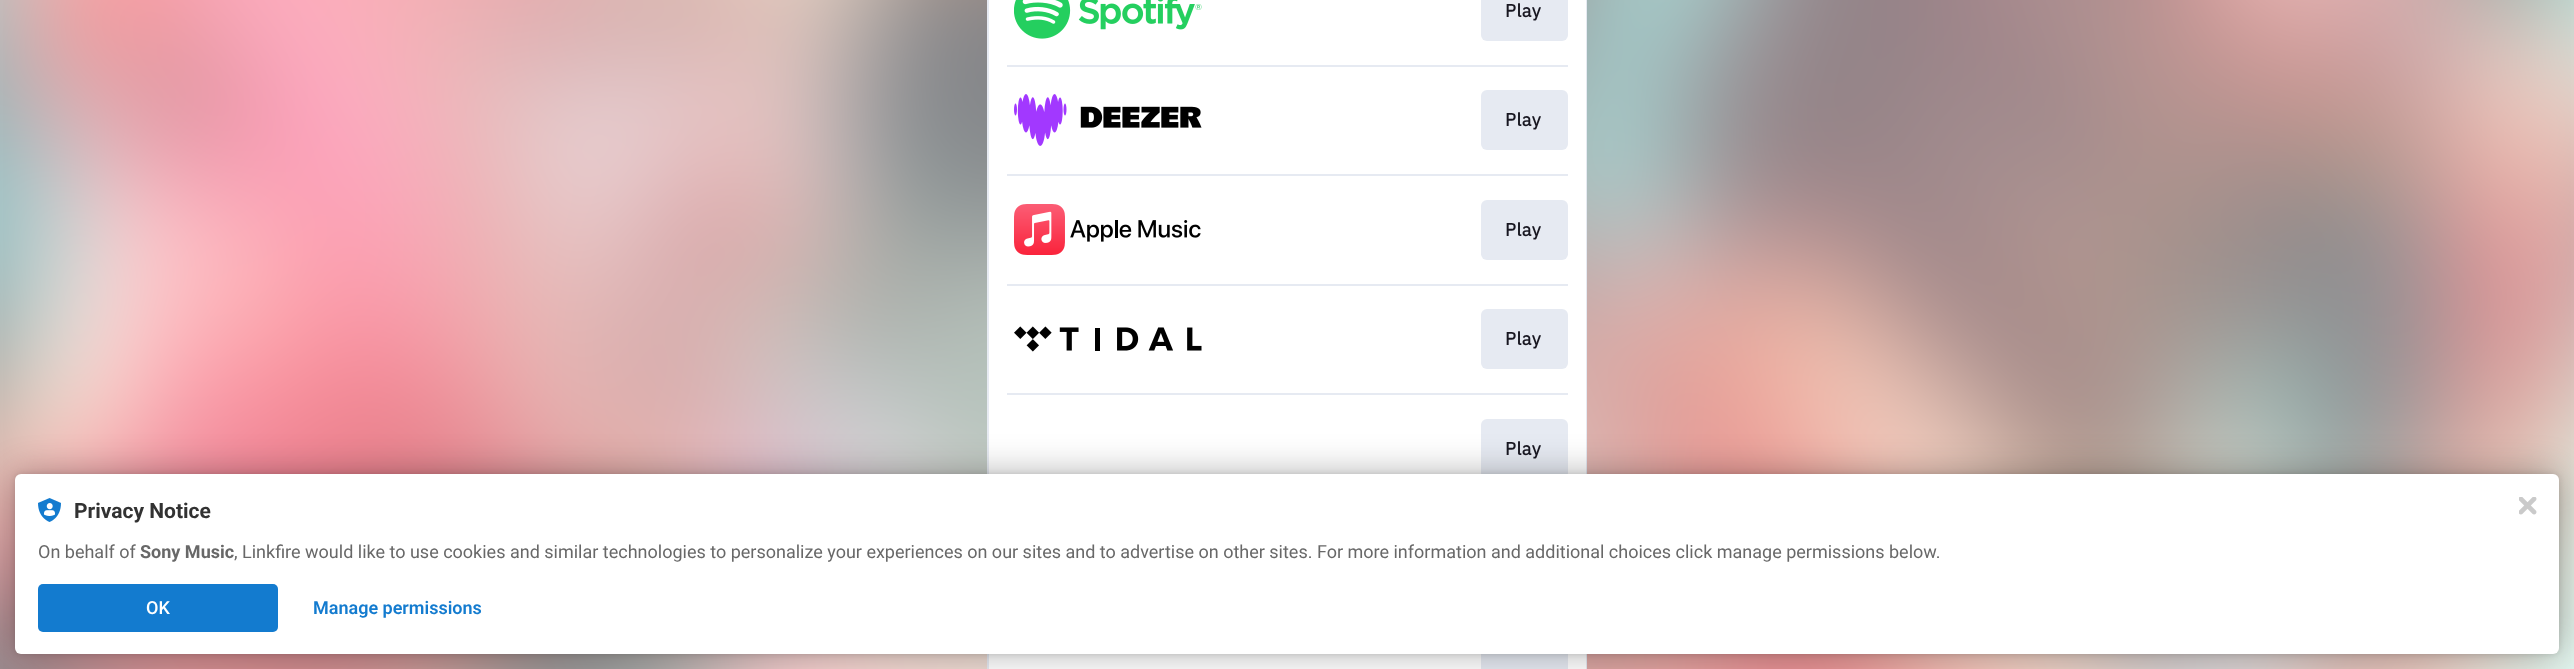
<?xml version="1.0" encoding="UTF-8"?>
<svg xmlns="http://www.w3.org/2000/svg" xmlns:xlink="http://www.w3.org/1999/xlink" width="2574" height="669">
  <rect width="100%" height="100%" fill="#ffffff" />
  <image x="0" y="0" width="2574" height="669" xlink:href="image1.png" />
  <rect x="988" y="-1" width="598" height="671" fill="none" stroke="#e6eaf2" stroke-width="2" />
  <rect x="989" width="597" height="669" fill="#ffffff" />
  <image x="1014" y="0" width="188" height="39" xlink:href="image2.png" />
  <rect x="1481" y="-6" width="87" height="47" rx="6" fill="#e6eaf2" />
  <rect x="1007" y="65" width="561" height="2" fill="#e6eaf2" />
  <image x="1014" y="94" width="188" height="52" xlink:href="image3.png" />
  <rect x="1481" y="90" width="87" height="60" rx="6" fill="#e6eaf2" />
  <rect x="1007" y="174" width="561" height="2" fill="#e6eaf2" />
  <image x="1014" y="204" width="187" height="51" xlink:href="image4.png" />
  <rect x="1481" y="200" width="87" height="60" rx="6" fill="#e6eaf2" />
  <rect x="1007" y="284" width="561" height="2" fill="#e6eaf2" />
  <image x="1014" y="326" width="188" height="26" xlink:href="image5.png" />
  <rect x="1481" y="309" width="87" height="60" rx="6" fill="#e6eaf2" />
  <rect x="1007" y="393" width="561" height="2" fill="#e6eaf2" />
  <rect x="1481" y="419" width="87" height="60" rx="6" fill="#e6eaf2" />
  <rect x="1481" y="654" width="87" height="15" fill="#e6eaf2" />
  <rect x="15" y="474" width="2544" height="180" rx="6" fill="#000000" fill-opacity="0.12" filter="blur(3px)" />
  <rect x="15" y="474" width="2544" height="180" rx="6" fill="#000000" fill-opacity="0.3" filter="blur(18px)" />
  <rect x="15" y="474" width="2544" height="180" rx="6" fill="#ffffff" />
  <image x="38" y="498" width="23" height="24" xlink:href="image6.png" />
  <rect x="38" y="584" width="240" height="48" rx="5" fill="#137bcf" />
  <image x="2519" y="497" width="18" height="18" xlink:href="image7.png" />
  <text x="1505" y="17" style="font-family: IBM Plex Sans; font-size: 18px; font-weight: bold; letter-spacing: 0.5px; fill: #181721">Play</text>
  <text x="1505" y="126" style="font-family: IBM Plex Sans; font-size: 18px; font-weight: bold; letter-spacing: 0.5px; fill: #181721">Play</text>
  <text x="1505" y="236" style="font-family: IBM Plex Sans; font-size: 18px; font-weight: bold; letter-spacing: 0.5px; fill: #181721">Play</text>
  <text x="1505" y="345" style="font-family: IBM Plex Sans; font-size: 18px; font-weight: bold; letter-spacing: 0.5px; fill: #181721">Play</text>
  <text x="1505" y="455" style="font-family: IBM Plex Sans; font-size: 18px; font-weight: bold; letter-spacing: 0.5px; fill: #181721">Play</text>
  <text x="74" y="518" style="font-family: Roboto; font-size: 21px; font-weight: bold; fill: #323232">Privacy Notice</text>
  <text x="38" y="558" style="font-family: Roboto; font-size: 18px; fill: #686868">On behalf of</text>
  <text x="140" y="558" style="font-family: Roboto; font-size: 18px; font-weight: bold; fill: #686868">Sony Music</text>
  <text x="234" y="558" style="font-family: Roboto; font-size: 18px; fill: #686868">, Linkfire would like to use cookies and similar technologies to personalize your experiences on our sites and to advertise on other sites. For more information and additional choices click manage permissions below.</text>
  <text x="146" y="614" style="font-family: Roboto; font-size: 18px; font-weight: 500; fill: #ffffff">OK</text>
  <text x="313" y="614" style="font-family: Roboto; font-size: 18px; font-weight: 600; fill: #137bcf">Manage permissions</text>
</svg>
